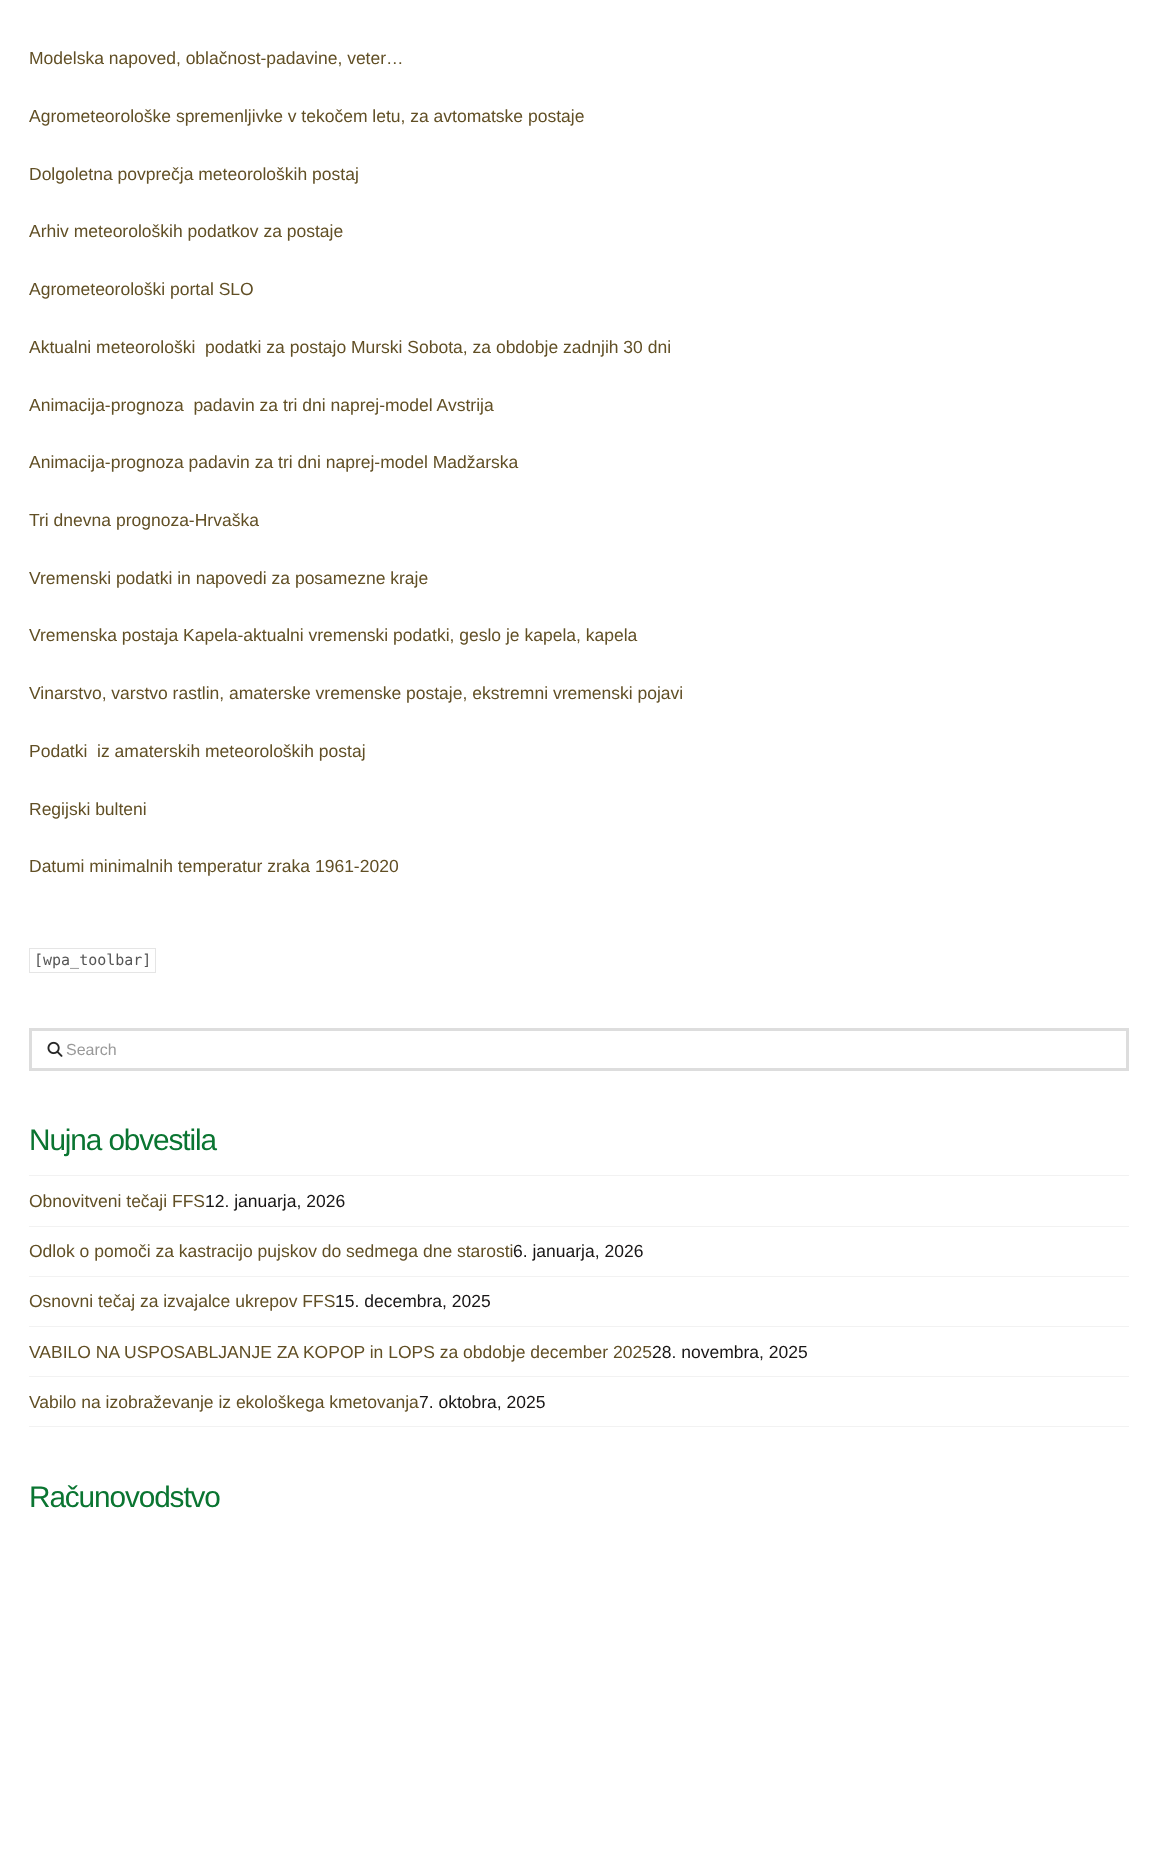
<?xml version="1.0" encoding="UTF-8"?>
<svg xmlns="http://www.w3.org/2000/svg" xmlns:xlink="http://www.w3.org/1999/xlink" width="1157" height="1858">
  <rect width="100%" height="100%" fill="#ffffff" />
  <rect x="29.5" y="948.5" width="126" height="24" fill="none" stroke="#e5e5e5" />
  <rect x="30.5" y="1029.5" width="1097" height="40" fill="none" stroke="#dddddd" stroke-width="3" />
  <image x="47" y="1041" width="16" height="16" xlink:href="image1.png" />
  <rect x="29" y="1175" width="1100" height="1" fill="#f2f2f2" />
  <rect x="29" y="1226" width="1100" height="1" fill="#f2f2f2" />
  <rect x="29" y="1276" width="1100" height="1" fill="#f2f2f2" />
  <rect x="29" y="1326" width="1100" height="1" fill="#f2f2f2" />
  <rect x="29" y="1376" width="1100" height="1" fill="#f2f2f2" />
  <rect x="29" y="1426" width="1100" height="1" fill="#f2f2f2" />
  <text x="29" y="64" style="font-family: Liberation Sans; font-size: 17.5px; fill: #614f25">Modelska napoved, oblačnost-padavine, veter…</text>
  <text x="29" y="122" style="font-family: Liberation Sans; font-size: 17.5px; fill: #614f25">Agrometeorološke spremenljivke v tekočem letu, za avtomatske postaje</text>
  <text x="29" y="180" style="font-family: Liberation Sans; font-size: 17.5px; fill: #614f25">Dolgoletna povprečja meteoroloških postaj</text>
  <text x="29" y="237" style="font-family: Liberation Sans; font-size: 17.5px; fill: #614f25">Arhiv meteoroloških podatkov za postaje</text>
  <text x="29" y="295" style="font-family: Liberation Sans; font-size: 17.5px; fill: #614f25">Agrometeorološki portal SLO</text>
  <text x="29" y="353" style="font-family: Liberation Sans; font-size: 17.5px; fill: #614f25" xml:space="preserve">Aktualni meteorološki  podatki za postajo Murski Sobota, za obdobje zadnjih 30 dni</text>
  <text x="29" y="411" style="font-family: Liberation Sans; font-size: 17.5px; fill: #614f25" xml:space="preserve">Animacija-prognoza  padavin za tri dni naprej-model Avstrija</text>
  <text x="29" y="468" style="font-family: Liberation Sans; font-size: 17.5px; fill: #614f25">Animacija-prognoza padavin za tri dni naprej-model Madžarska</text>
  <text x="29" y="526" style="font-family: Liberation Sans; font-size: 17.5px; fill: #614f25">Tri dnevna prognoza-Hrvaška</text>
  <text x="29" y="584" style="font-family: Liberation Sans; font-size: 17.5px; fill: #614f25">Vremenski podatki in napovedi za posamezne kraje</text>
  <text x="29" y="641" style="font-family: Liberation Sans; font-size: 17.5px; fill: #614f25">Vremenska postaja Kapela-aktualni vremenski podatki, geslo je kapela, kapela</text>
  <text x="29" y="699" style="font-family: Liberation Sans; font-size: 17.5px; fill: #614f25">Vinarstvo, varstvo rastlin, amaterske vremenske postaje, ekstremni vremenski pojavi</text>
  <text x="29" y="757" style="font-family: Liberation Sans; font-size: 17.5px; fill: #614f25" xml:space="preserve">Podatki  iz amaterskih meteoroloških postaj</text>
  <text x="29" y="815" style="font-family: Liberation Sans; font-size: 17.5px; fill: #614f25">Regijski bulteni</text>
  <text x="29" y="872" style="font-family: Liberation Sans; font-size: 17.5px; fill: #614f25">Datumi minimalnih temperatur zraka 1961-2020</text>
  <text x="34" y="965" style="font-family: DejaVu Sans Mono; font-size: 15px; fill: #555555">[wpa_toolbar]</text>
  <text x="66" y="1055" style="font-family: Liberation Sans; font-size: 16px; fill: #999999">Search</text>
  <text x="29" y="1150" style="font-family: Liberation Sans; font-size: 29.75px; letter-spacing: -1.1px; fill: #0a7531">Nujna obvestila</text>
  <text x="29" y="1207" style="font-family: Liberation Sans; font-size: 17.5px; fill: #614f25">Obnovitveni tečaji FFS</text>
  <text x="205" y="1207" style="font-family: Liberation Sans; font-size: 17.5px; fill: #181616">12. januarja, 2026</text>
  <text x="29" y="1257" style="font-family: Liberation Sans; font-size: 17.5px; fill: #614f25">Odlok o pomoči za kastracijo pujskov do sedmega dne starosti</text>
  <text x="513" y="1257" style="font-family: Liberation Sans; font-size: 17.5px; fill: #181616">6. januarja, 2026</text>
  <text x="29" y="1307" style="font-family: Liberation Sans; font-size: 17.5px; fill: #614f25">Osnovni tečaj za izvajalce ukrepov FFS</text>
  <text x="335" y="1307" style="font-family: Liberation Sans; font-size: 17.5px; fill: #181616">15. decembra, 2025</text>
  <text x="29" y="1358" style="font-family: Liberation Sans; font-size: 17.5px; fill: #614f25">VABILO NA USPOSABLJANJE ZA KOPOP in LOPS za obdobje december 2025</text>
  <text x="652" y="1358" style="font-family: Liberation Sans; font-size: 17.5px; fill: #181616">28. novembra, 2025</text>
  <text x="29" y="1408" style="font-family: Liberation Sans; font-size: 17.5px; fill: #614f25">Vabilo na izobraževanje iz ekološkega kmetovanja</text>
  <text x="419" y="1408" style="font-family: Liberation Sans; font-size: 17.5px; fill: #181616">7. oktobra, 2025</text>
  <text x="29" y="1507" style="font-family: Liberation Sans; font-size: 29.75px; letter-spacing: -1.1px; fill: #0a7531">Računovodstvo</text>
</svg>
